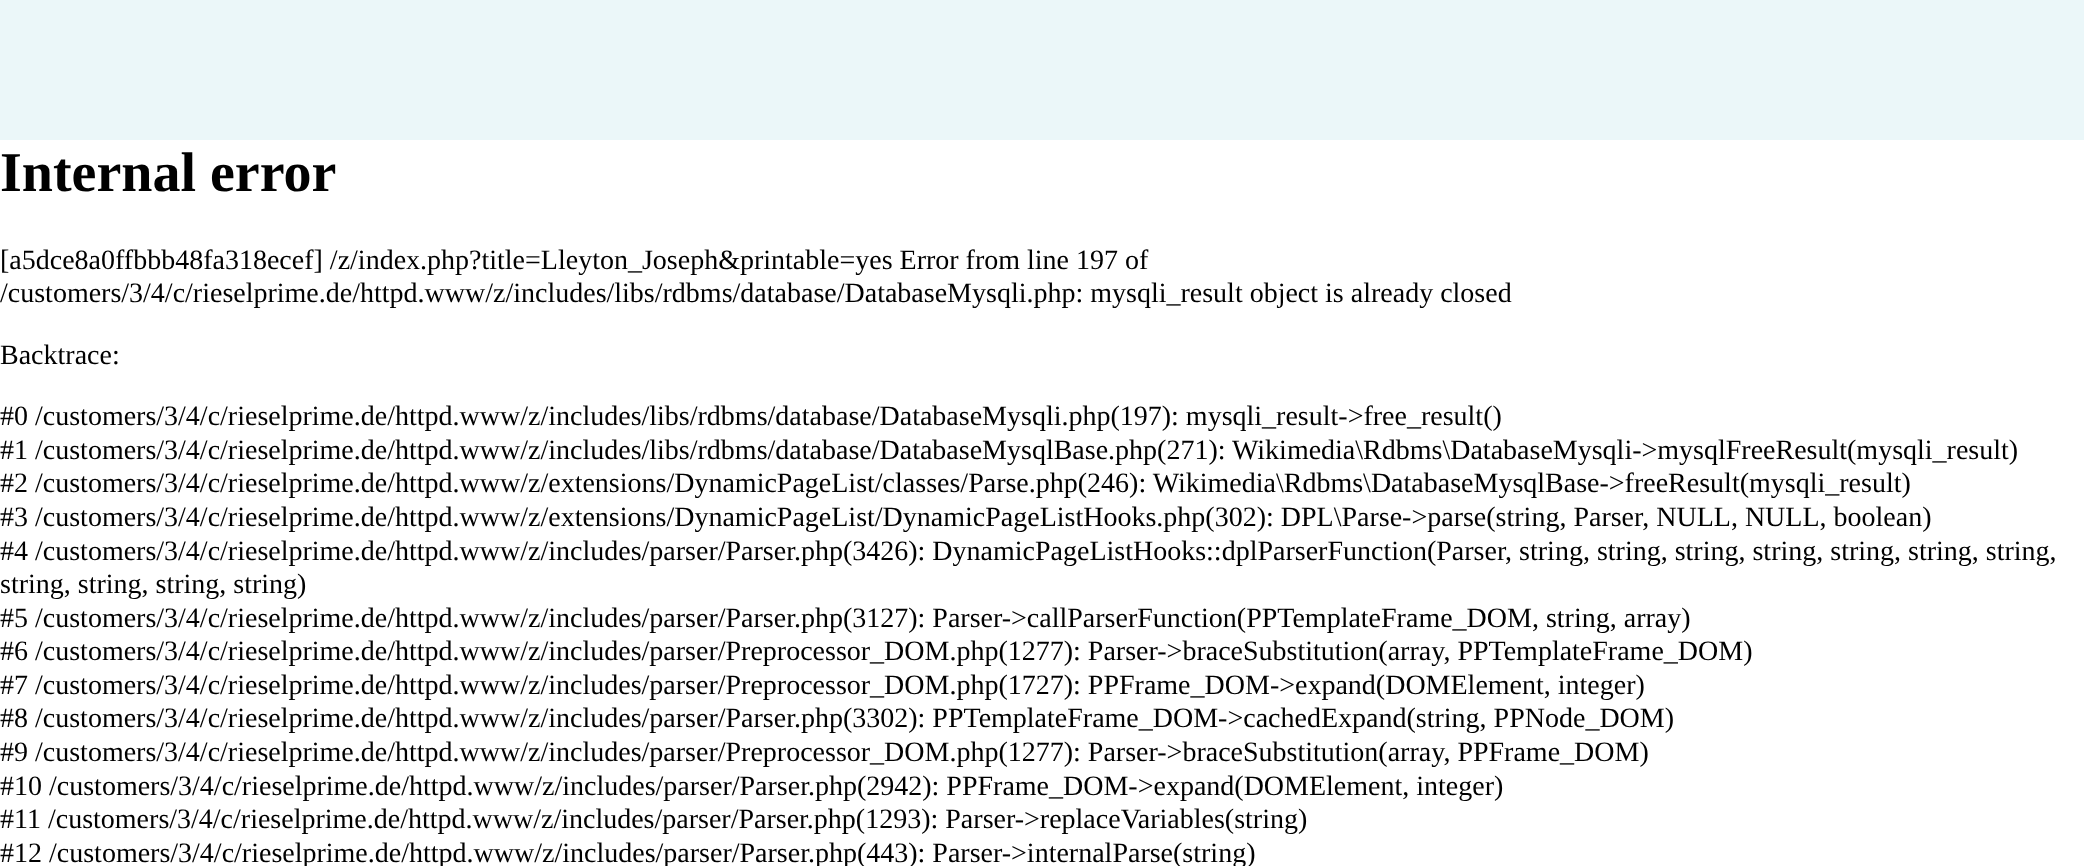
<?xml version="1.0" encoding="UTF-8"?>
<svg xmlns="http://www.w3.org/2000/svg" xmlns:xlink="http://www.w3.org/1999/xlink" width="2084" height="866">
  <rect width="100%" height="100%" fill="#ebf7f9" />
  <rect y="140" width="2084" height="726" fill="#ffffff" />
  <text x="0" y="191" style="font-family: Liberation Serif; font-size: 56px; font-weight: bold; fill: #000000">Internal error</text>
  <text x="0" y="269" style="font-family: Liberation Serif; font-size: 28px; fill: #000000">[a5dce8a0ffbbb48fa318ecef] /z/index.php?title=Lleyton_Joseph&amp;printable=yes Error from line 197 of</text>
  <text x="0" y="302" style="font-family: Liberation Serif; font-size: 28px; fill: #000000">/customers/3/4/c/rieselprime.de/httpd.www/z/includes/libs/rdbms/database/DatabaseMysqli.php: mysqli_result object is already closed</text>
  <text x="0" y="364" style="font-family: Liberation Serif; font-size: 28px; fill: #000000">Backtrace:</text>
  <text x="0" y="425" style="font-family: Liberation Serif; font-size: 28px; fill: #000000">#0 /customers/3/4/c/rieselprime.de/httpd.www/z/includes/libs/rdbms/database/DatabaseMysqli.php(197): mysqli_result-&gt;free_result()</text>
  <text x="0" y="459" style="font-family: Liberation Serif; font-size: 28px; fill: #000000">#1 /customers/3/4/c/rieselprime.de/httpd.www/z/includes/libs/rdbms/database/DatabaseMysqlBase.php(271): Wikimedia\Rdbms\DatabaseMysqli-&gt;mysqlFreeResult(mysqli_result)</text>
  <text x="0" y="492" style="font-family: Liberation Serif; font-size: 28px; fill: #000000">#2 /customers/3/4/c/rieselprime.de/httpd.www/z/extensions/DynamicPageList/classes/Parse.php(246): Wikimedia\Rdbms\DatabaseMysqlBase-&gt;freeResult(mysqli_result)</text>
  <text x="0" y="526" style="font-family: Liberation Serif; font-size: 28px; fill: #000000">#3 /customers/3/4/c/rieselprime.de/httpd.www/z/extensions/DynamicPageList/DynamicPageListHooks.php(302): DPL\Parse-&gt;parse(string, Parser, NULL, NULL, boolean)</text>
  <text x="0" y="560" style="font-family: Liberation Serif; font-size: 28px; fill: #000000">#4 /customers/3/4/c/rieselprime.de/httpd.www/z/includes/parser/Parser.php(3426): DynamicPageListHooks::dplParserFunction(Parser, string, string, string, string, string, string, string,</text>
  <text x="0" y="593" style="font-family: Liberation Serif; font-size: 28px; fill: #000000">string, string, string, string)</text>
  <text x="0" y="627" style="font-family: Liberation Serif; font-size: 28px; fill: #000000">#5 /customers/3/4/c/rieselprime.de/httpd.www/z/includes/parser/Parser.php(3127): Parser-&gt;callParserFunction(PPTemplateFrame_DOM, string, array)</text>
  <text x="0" y="660" style="font-family: Liberation Serif; font-size: 28px; fill: #000000">#6 /customers/3/4/c/rieselprime.de/httpd.www/z/includes/parser/Preprocessor_DOM.php(1277): Parser-&gt;braceSubstitution(array, PPTemplateFrame_DOM)</text>
  <text x="0" y="694" style="font-family: Liberation Serif; font-size: 28px; fill: #000000">#7 /customers/3/4/c/rieselprime.de/httpd.www/z/includes/parser/Preprocessor_DOM.php(1727): PPFrame_DOM-&gt;expand(DOMElement, integer)</text>
  <text x="0" y="727" style="font-family: Liberation Serif; font-size: 28px; fill: #000000">#8 /customers/3/4/c/rieselprime.de/httpd.www/z/includes/parser/Parser.php(3302): PPTemplateFrame_DOM-&gt;cachedExpand(string, PPNode_DOM)</text>
  <text x="0" y="761" style="font-family: Liberation Serif; font-size: 28px; fill: #000000">#9 /customers/3/4/c/rieselprime.de/httpd.www/z/includes/parser/Preprocessor_DOM.php(1277): Parser-&gt;braceSubstitution(array, PPFrame_DOM)</text>
  <text x="0" y="795" style="font-family: Liberation Serif; font-size: 28px; fill: #000000">#10 /customers/3/4/c/rieselprime.de/httpd.www/z/includes/parser/Parser.php(2942): PPFrame_DOM-&gt;expand(DOMElement, integer)</text>
  <text x="0" y="828" style="font-family: Liberation Serif; font-size: 28px; fill: #000000">#11 /customers/3/4/c/rieselprime.de/httpd.www/z/includes/parser/Parser.php(1293): Parser-&gt;replaceVariables(string)</text>
  <text x="0" y="862" style="font-family: Liberation Serif; font-size: 28px; fill: #000000">#12 /customers/3/4/c/rieselprime.de/httpd.www/z/includes/parser/Parser.php(443): Parser-&gt;internalParse(string)</text>
</svg>
